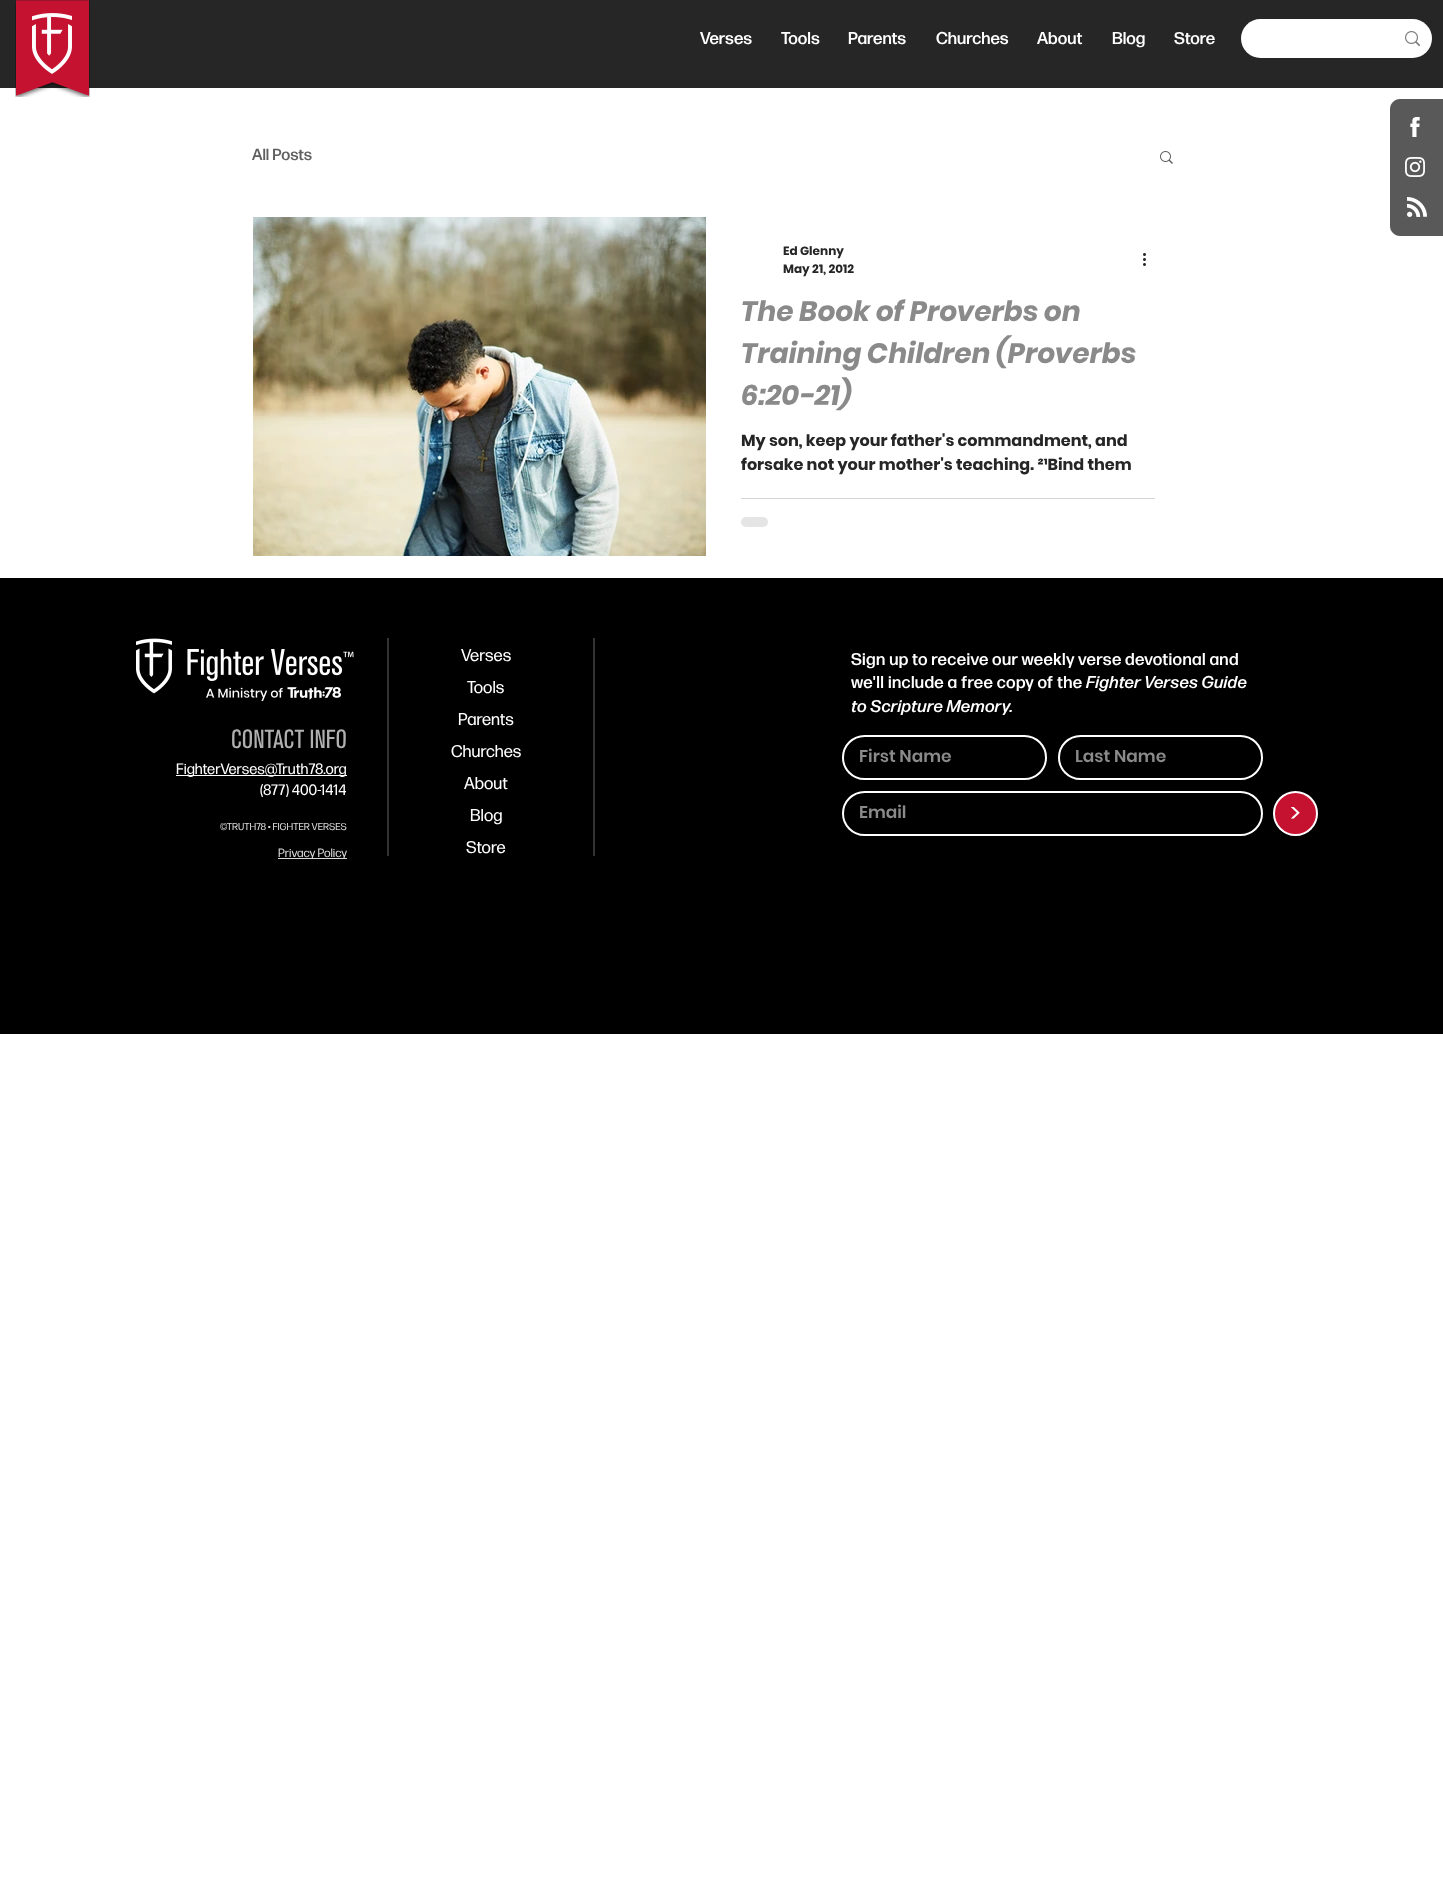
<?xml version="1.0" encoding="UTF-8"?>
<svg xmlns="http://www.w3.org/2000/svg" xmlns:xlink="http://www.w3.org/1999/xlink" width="1443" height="1899">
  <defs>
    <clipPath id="clip1"><rect x="741" y="429" width="414" height="57" /></clipPath>
  </defs>
  <rect width="100%" height="100%" fill="#ffffff" />
  <rect width="1443" height="88" fill="#262626" />
  <image x="15" y="0" width="75" height="97" xlink:href="image1.png" />
  <image x="32" y="13" width="40" height="61" xlink:href="image2.png" />
  <rect x="1241" y="19" width="191" height="39" rx="19.5" fill="#ffffff" />
  <image x="1405" y="31" width="15" height="15" xlink:href="image3.png" />
  <image x="1160" y="151" width="13" height="13" xlink:href="image4.png" />
  <image x="253" y="217" width="453" height="339" xlink:href="image5.png" />
  <image x="1143" y="253" width="3" height="13" xlink:href="image6.png" />
  <rect x="741" y="498" width="414" height="1" fill="#d4d4d4" />
  <rect x="741" y="517" width="27" height="10" rx="5" fill="#e5e5e5" />
  <path d="M 1400 99 h 43 v 137 h -43 c -5.5 0 -10 -4.5 -10 -10 v -117 c 0 -5.5 4.5 -10 10 -10 z" fill="#595959" />
  <image x="1410" y="117" width="10" height="20" xlink:href="image7.png" />
  <image x="1405" y="157" width="20" height="20" xlink:href="image8.png" />
  <image x="1407" y="197" width="20" height="20" xlink:href="image9.png" />
  <rect y="578" width="1443" height="456" fill="#000000" />
  <image x="136" y="638" width="36" height="56" xlink:href="image10.png" />
  <image x="187" y="649" width="167" height="32" xlink:href="image11.png" />
  <rect x="387" y="638" width="2" height="218" fill="#333333" />
  <rect x="593" y="638" width="2" height="218" fill="#333333" />
  <image x="206" y="687" width="135" height="14" xlink:href="image12.png" />
  <rect x="176" y="775" width="171" height="1" fill="#ffffff" />
  <rect x="278" y="858" width="69" height="1" fill="#d8d8d8" />
  <rect x="843" y="736" width="203" height="43" rx="21.5" fill="none" stroke="#ffffff" stroke-width="2" />
  <rect x="1059" y="736" width="203" height="43" rx="21.5" fill="none" stroke="#ffffff" stroke-width="2" />
  <rect x="843" y="792" width="419" height="43" rx="21.5" fill="none" stroke="#ffffff" stroke-width="2" />
  <circle cx="1295.5" cy="813.5" r="21.5" fill="#c41230" stroke="#ffffff" stroke-width="2" />
  <text x="700" y="44" style="font-family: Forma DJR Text; font-size: 17px; font-weight: 500; fill: #ffffff">Verses</text>
  <text x="781" y="44" style="font-family: Forma DJR Text; font-size: 17px; font-weight: 500; fill: #ffffff">Tools</text>
  <text x="848" y="44" style="font-family: Forma DJR Text; font-size: 17px; font-weight: 500; fill: #ffffff">Parents</text>
  <text x="936" y="44" style="font-family: Forma DJR Text; font-size: 17px; font-weight: 500; fill: #ffffff">Churches</text>
  <text x="1037" y="44" style="font-family: Forma DJR Text; font-size: 17px; font-weight: 500; fill: #ffffff">About</text>
  <text x="1112" y="44" style="font-family: Forma DJR Text; font-size: 17px; font-weight: 500; fill: #ffffff">Blog</text>
  <text x="1174" y="44" style="font-family: Forma DJR Text; font-size: 17px; font-weight: 500; fill: #ffffff">Store</text>
  <text x="252" y="160" style="font-family: Forma DJR Text; font-size: 16px; font-weight: 500; fill: #5e5e5e">All Posts</text>
  <text x="783" y="255" style="font-family: Poppins; font-size: 12px; font-weight: bold; fill: #262626">Ed Glenny</text>
  <text x="783" y="273" style="font-family: Poppins; font-size: 12px; font-weight: bold; fill: #262626">May 21, 2012</text>
  <text x="741" y="321" style="font-family: Poppins; font-size: 28px; font-weight: bold; font-style: italic; fill: #8a8a8a">The Book of Proverbs on</text>
  <text x="741" y="363" style="font-family: Poppins; font-size: 28px; font-weight: bold; font-style: italic; fill: #8a8a8a">Training Children (Proverbs</text>
  <text x="741" y="405" style="font-family: Poppins; font-size: 28px; font-weight: bold; font-style: italic; fill: #8a8a8a">6:20-21)</text>
  <text x="741" y="446" style="font-family: Poppins; font-size: 16px; font-weight: bold; fill: #262626">My son, keep your father's commandment, and</text>
  <g clip-path="url(#clip1)">
    <text x="741" y="470" style="font-family: Poppins; font-size: 16px; font-weight: bold; fill: #262626">forsake not your mother's teaching. ²¹Bind them</text>
  </g>
  <text x="461" y="661" style="font-family: Forma DJR Text; font-size: 17px; fill: #ffffff">Verses</text>
  <text x="467" y="693" style="font-family: Forma DJR Text; font-size: 17px; fill: #ffffff">Tools</text>
  <text x="458" y="725" style="font-family: Forma DJR Text; font-size: 17px; fill: #ffffff">Parents</text>
  <text x="451" y="757" style="font-family: Forma DJR Text; font-size: 17px; fill: #ffffff">Churches</text>
  <text x="464" y="789" style="font-family: Forma DJR Text; font-size: 17px; fill: #ffffff">About</text>
  <text x="470" y="821" style="font-family: Forma DJR Text; font-size: 17px; fill: #ffffff">Blog</text>
  <text x="466" y="853" style="font-family: Forma DJR Text; font-size: 17px; fill: #ffffff">Store</text>
  <text x="231" y="748" style="font-family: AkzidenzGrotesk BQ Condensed; font-size: 26px; font-weight: 500; fill: #b0b0b0">CONTACT INFO</text>
  <text x="176" y="774" style="font-family: Forma DJR Text; font-size: 15px; fill: #ffffff">FighterVerses@Truth78.org</text>
  <text x="260" y="795" style="font-family: Forma DJR Text; font-size: 15px; fill: #ffffff">(877) 400-1414</text>
  <text x="220" y="830" style="font-family: Forma DJR Text; font-size: 10px; fill: #d8d8d8">©TRUTH78 • FIGHTER VERSES</text>
  <text x="278" y="857" style="font-family: Forma DJR Text; font-size: 12px; fill: #d8d8d8">Privacy Policy</text>
  <text x="851" y="665" style="font-family: Forma DJR Text; font-size: 17px; font-weight: 500; letter-spacing: 0.35px; fill: #ffffff">Sign up to receive our weekly verse devotional and</text>
  <text x="851" y="688" style="font-family: Forma DJR Text; font-size: 17px; font-weight: 500; letter-spacing: 0.35px; fill: #ffffff">we'll include a free copy of the</text>
  <text x="1086" y="688" style="font-family: Forma DJR Text; font-size: 17px; font-weight: 500; font-style: italic; letter-spacing: 0.35px; fill: #ffffff">Fighter Verses Guide</text>
  <text x="851" y="712" style="font-family: Forma DJR Text; font-size: 17px; font-weight: 500; font-style: italic; letter-spacing: 0.35px; fill: #ffffff">to Scripture Memory.</text>
  <text x="859" y="762" style="font-family: Poppins; font-size: 17px; font-weight: 600; fill: #8a8a8a">First Name</text>
  <text x="1075" y="762" style="font-family: Poppins; font-size: 17px; font-weight: 600; fill: #8a8a8a">Last Name</text>
  <text x="859" y="818" style="font-family: Poppins; font-size: 17px; font-weight: 600; fill: #8a8a8a">Email</text>
  <text x="1290" y="822" style="font-family: Poppins; font-size: 25px; fill: #ffffff">&gt;</text>
</svg>
